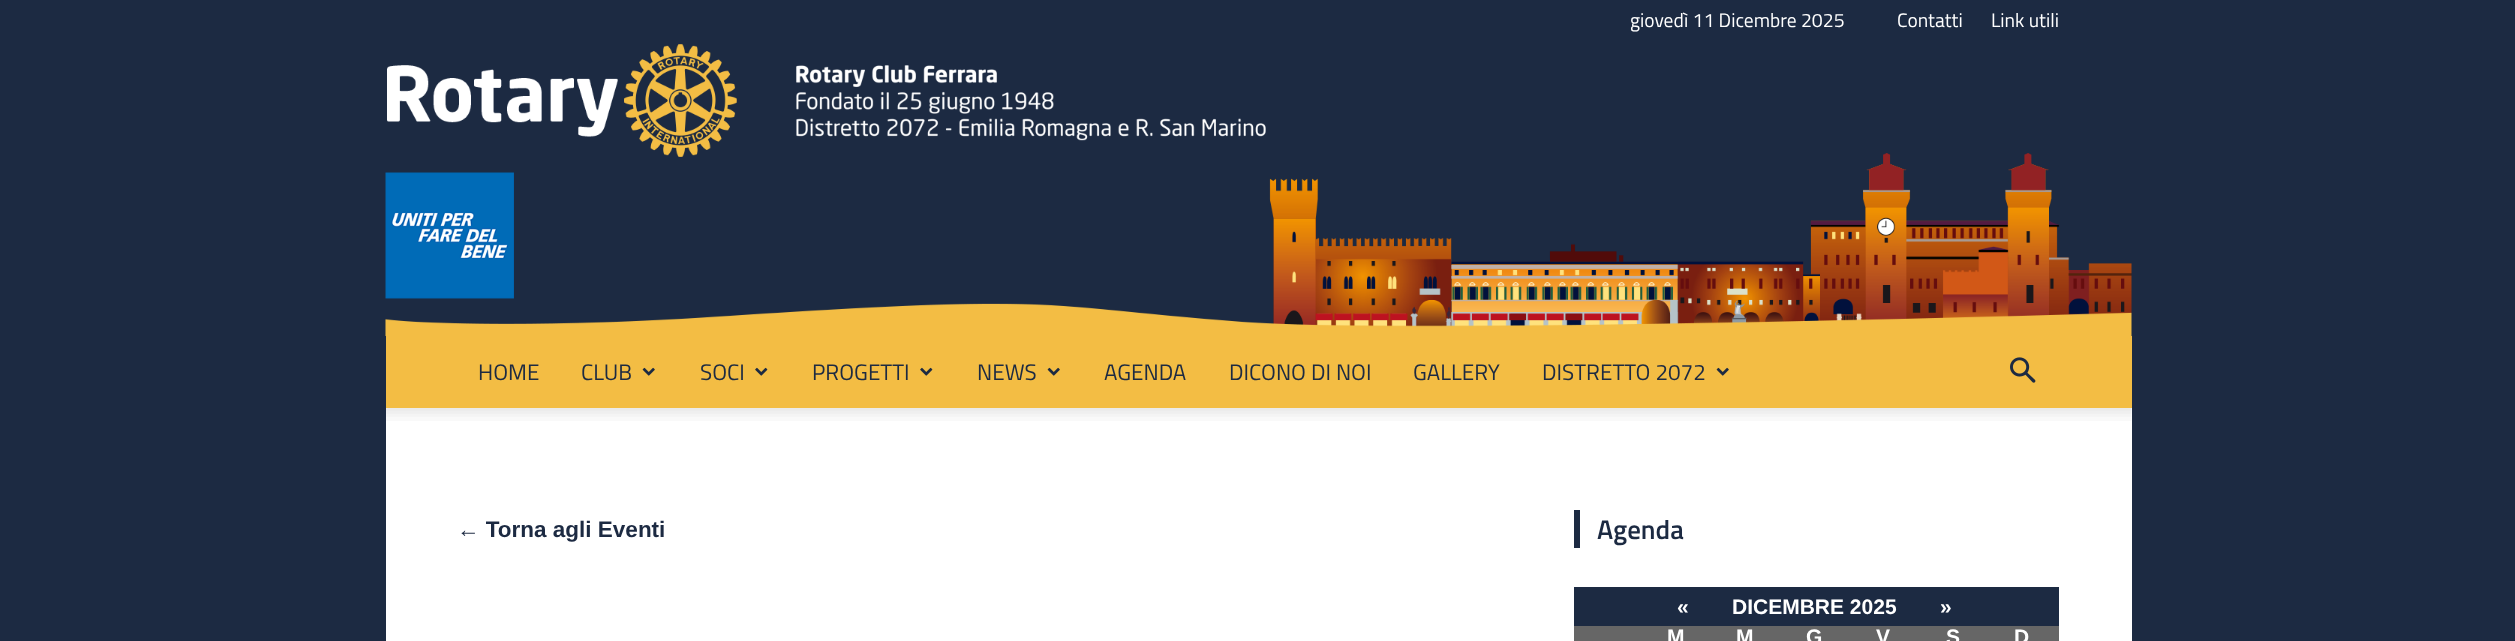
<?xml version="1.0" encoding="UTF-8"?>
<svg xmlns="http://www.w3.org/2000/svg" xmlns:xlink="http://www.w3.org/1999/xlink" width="2515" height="641">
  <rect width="100%" height="100%" fill="#1c2a42" />
  <image x="385" y="44" width="1747" height="292" xlink:href="image1.png" />
  <rect x="386" y="336" width="1746" height="72" fill="#f3bd44" />
  <image x="642" y="367" width="13" height="9" xlink:href="image2.png" />
  <image x="755" y="367" width="13" height="9" xlink:href="image3.png" />
  <image x="920" y="367" width="13" height="9" xlink:href="image3.png" />
  <image x="1047" y="367" width="13" height="9" xlink:href="image2.png" />
  <image x="1716" y="367" width="13" height="9" xlink:href="image2.png" />
  <image x="2010" y="357" width="26" height="26" xlink:href="image4.png" />
  <rect x="386" y="408" width="1746" height="233" fill="#ffffff" />
  <image x="386" y="408" width="1746" height="13" xlink:href="image5.png" />
  <rect x="1574" y="510" width="6" height="38" fill="#1c2a42" />
  <rect x="1574" y="626" width="485" height="15" fill="#666666" />
  <rect x="1574" y="589" width="483" height="35" fill="#1c2a42" />
  <rect x="1574" y="587" width="484" height="2" fill="#1c2a42" />
  <rect x="2057" y="587" width="2" height="39" fill="#1c2a42" />
  <rect x="1574" y="624" width="484" height="2" fill="#1c2a42" />
  <text x="1630" y="27" style="font-family: Titillium Web; font-size: 19.5px; fill: #ffffff">giovedì 11 Dicembre 2025</text>
  <text x="1897" y="27" style="font-family: Titillium Web; font-size: 19.5px; fill: #ffffff">Contatti</text>
  <text x="1991" y="27" style="font-family: Titillium Web; font-size: 19.5px; fill: #ffffff">Link utili</text>
  <text x="478" y="380" style="font-family: Titillium Web; font-size: 22.5px; fill: #1c2a42">HOME</text>
  <text x="581" y="380" style="font-family: Titillium Web; font-size: 22.5px; fill: #1c2a42">CLUB</text>
  <text x="700" y="380" style="font-family: Titillium Web; font-size: 22.5px; fill: #1c2a42">SOCI</text>
  <text x="812" y="380" style="font-family: Titillium Web; font-size: 22.5px; fill: #1c2a42">PROGETTI</text>
  <text x="977" y="380" style="font-family: Titillium Web; font-size: 22.5px; fill: #1c2a42">NEWS</text>
  <text x="1104" y="380" style="font-family: Titillium Web; font-size: 22.5px; fill: #1c2a42">AGENDA</text>
  <text x="1229" y="380" style="font-family: Titillium Web; font-size: 22.5px; fill: #1c2a42">DICONO DI NOI</text>
  <text x="1413" y="380" style="font-family: Titillium Web; font-size: 22.5px; fill: #1c2a42">GALLERY</text>
  <text x="1542" y="380" style="font-family: Titillium Web; font-size: 22.5px; fill: #1c2a42">DISTRETTO 2072</text>
  <text x="457" y="537" style="font-family: Liberation Sans; font-size: 22.5px; font-weight: bold; fill: #1c2a42">← Torna agli Eventi</text>
  <text x="1597" y="539" style="font-family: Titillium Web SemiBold; font-size: 27px; font-weight: 600; fill: #1c2a42">Agenda</text>
  <text x="1677" y="614" style="font-family: Liberation Sans; font-size: 21px; font-weight: bold; fill: #ffffff">«</text>
  <text x="1732" y="614" style="font-family: Liberation Sans; font-size: 21px; font-weight: bold; fill: #ffffff">DICEMBRE 2025</text>
  <text x="1940" y="614" style="font-family: Liberation Sans; font-size: 21px; font-weight: bold; fill: #ffffff">»</text>
  <text x="1667" y="644" style="font-family: Liberation Sans; font-size: 21px; font-weight: bold; fill: #ffffff">M</text>
  <text x="1736" y="644" style="font-family: Liberation Sans; font-size: 21px; font-weight: bold; fill: #ffffff">M</text>
  <text x="1806" y="644" style="font-family: Liberation Sans; font-size: 21px; font-weight: bold; fill: #ffffff">G</text>
  <text x="1876" y="644" style="font-family: Liberation Sans; font-size: 21px; font-weight: bold; fill: #ffffff">V</text>
  <text x="1946" y="644" style="font-family: Liberation Sans; font-size: 21px; font-weight: bold; fill: #ffffff">S</text>
  <text x="2014" y="644" style="font-family: Liberation Sans; font-size: 21px; font-weight: bold; fill: #ffffff">D</text>
</svg>
